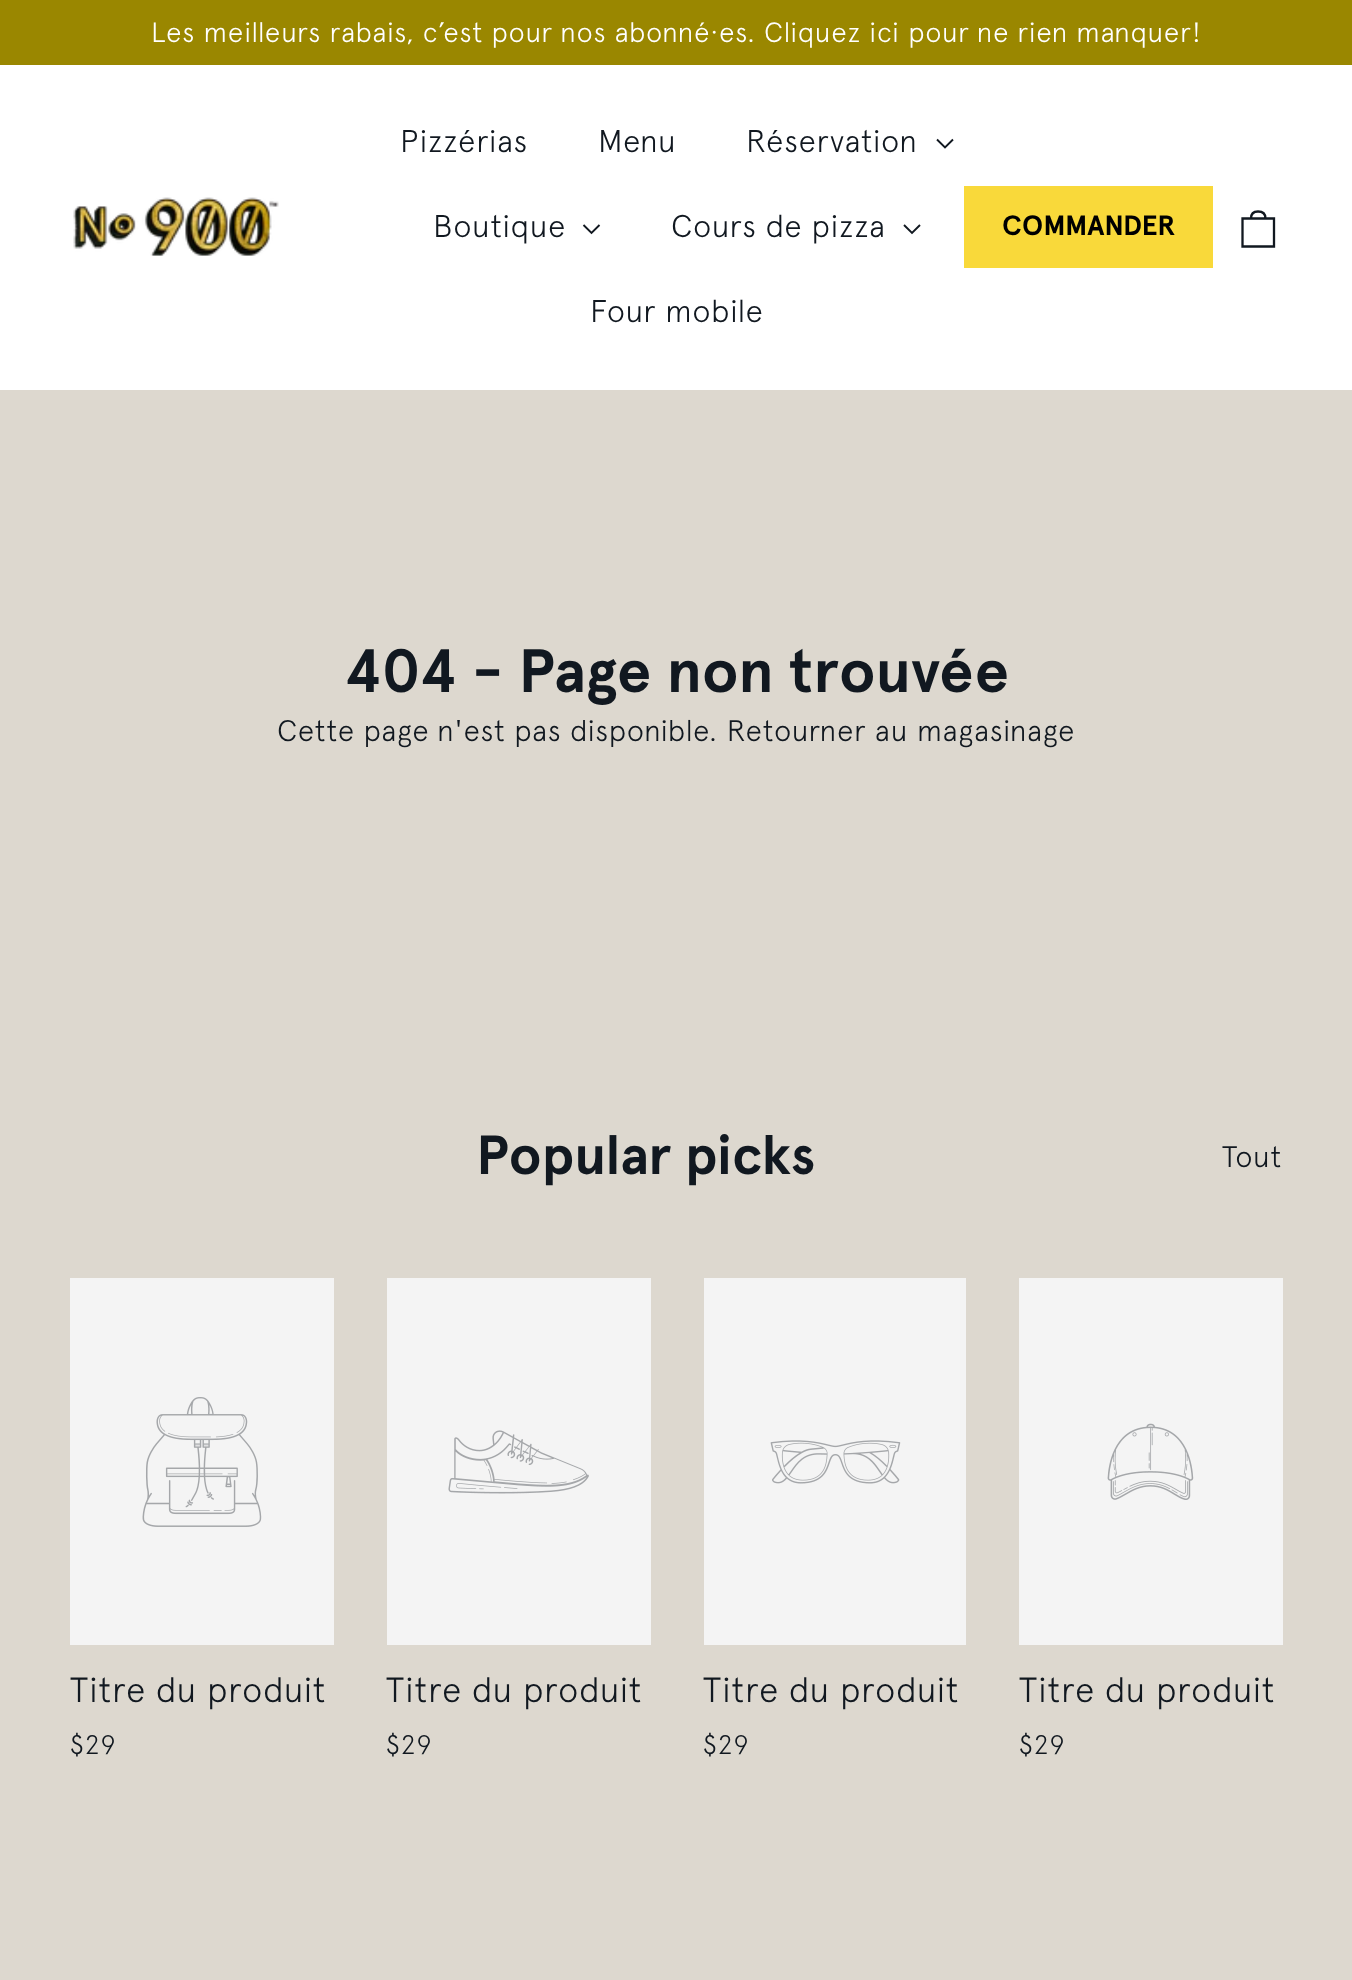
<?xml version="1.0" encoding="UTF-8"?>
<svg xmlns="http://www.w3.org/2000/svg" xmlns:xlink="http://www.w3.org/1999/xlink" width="1352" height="1980">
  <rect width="100%" height="100%" fill="#ddd8cf" />
  <rect width="1352" height="65" fill="#9a8700" />
  <rect y="65" width="1352" height="325" fill="#ffffff" />
  <image x="73" y="197" width="206" height="59" xlink:href="image1.png" />
  <path d="M 937 139.5 l 8 8 l 8 -8" fill="none" stroke="#111820" stroke-width="1.9" />
  <path d="M 583.5 225 l 8 8 l 8 -8" fill="none" stroke="#111820" stroke-width="1.9" />
  <path d="M 904 225 l 8 8 l 8 -8" fill="none" stroke="#111820" stroke-width="1.9" />
  <rect x="964" y="186" width="249" height="82" fill="#f9d93a" />
  <path d="M 1242.5 218.5 h 31.5 v 28 h -31.5 z m 8.5 0 c 0 -5.5 3 -7 7 -7 c 4.5 0 7.5 1.5 7.5 7" fill="none" stroke="#111820" stroke-width="2.3" />
  <rect x="70" y="1278" width="264" height="367" fill="#f4f4f4" />
  <image x="142" y="1397" width="120" height="130" xlink:href="image2.png" />
  <rect x="387" y="1278" width="264" height="367" fill="#f4f4f4" />
  <image x="448" y="1430" width="141" height="64" xlink:href="image3.png" />
  <rect x="704" y="1278" width="262" height="367" fill="#f4f4f4" />
  <image x="770" y="1440" width="131" height="44" xlink:href="image4.png" />
  <rect x="1019" y="1278" width="264" height="367" fill="#f4f4f4" />
  <image x="1107" y="1423" width="87" height="77" xlink:href="image5.png" />
  <text x="151" y="42" style="font-family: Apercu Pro; font-size: 28px; font-weight: 300; letter-spacing: 0.75px; fill: #ffffff">Les meilleurs rabais, c’est pour nos abonné·es. Cliquez ici pour ne rien manquer!</text>
  <text x="400" y="152" style="font-family: Apercu Pro; font-size: 31.5px; font-weight: 300; letter-spacing: 0.75px; fill: #111820">Pizzérias</text>
  <text x="598" y="152" style="font-family: Apercu Pro; font-size: 31.5px; font-weight: 300; letter-spacing: 0.75px; fill: #111820">Menu</text>
  <text x="746" y="152" style="font-family: Apercu Pro; font-size: 31.5px; font-weight: 300; letter-spacing: 0.75px; fill: #111820">Réservation</text>
  <text x="433" y="237" style="font-family: Apercu Pro; font-size: 31.5px; font-weight: 300; letter-spacing: 0.75px; fill: #111820">Boutique</text>
  <text x="671" y="237" style="font-family: Apercu Pro; font-size: 31.5px; font-weight: 300; letter-spacing: 0.75px; fill: #111820">Cours de pizza</text>
  <text x="590" y="322" style="font-family: Apercu Pro; font-size: 31.5px; font-weight: 300; letter-spacing: 0.75px; fill: #111820">Four mobile</text>
  <text x="1002" y="235" style="font-family: Apercu Pro; font-size: 28px; font-weight: bold; fill: #000000">COMMANDER</text>
  <text x="344" y="692" style="font-family: Apercu Pro; font-size: 61.25px; font-weight: bold; fill: #111820">404 - Page non trouvée</text>
  <text x="277" y="741" style="font-family: Apercu Pro; font-size: 29.75px; font-weight: 300; letter-spacing: 0.75px; fill: #111820">Cette page n'est pas disponible. Retourner au magasinage</text>
  <text x="476" y="1174" style="font-family: Apercu Pro; font-size: 55px; font-weight: bold; fill: #111820">Popular picks</text>
  <text x="1222" y="1167" style="font-family: Apercu Pro; font-size: 29.75px; font-weight: 300; letter-spacing: 0.75px; fill: #111820">Tout</text>
  <text x="70" y="1702" style="font-family: Apercu Pro; font-size: 35px; font-weight: 300; letter-spacing: 0.75px; fill: #111820">Titre du produit</text>
  <text x="70" y="1754" style="font-family: Apercu Pro; font-size: 27px; font-weight: 300; letter-spacing: 0.75px; fill: #111820">$29</text>
  <text x="386" y="1702" style="font-family: Apercu Pro; font-size: 35px; font-weight: 300; letter-spacing: 0.75px; fill: #111820">Titre du produit</text>
  <text x="386" y="1754" style="font-family: Apercu Pro; font-size: 27px; font-weight: 300; letter-spacing: 0.75px; fill: #111820">$29</text>
  <text x="703" y="1702" style="font-family: Apercu Pro; font-size: 35px; font-weight: 300; letter-spacing: 0.75px; fill: #111820">Titre du produit</text>
  <text x="703" y="1754" style="font-family: Apercu Pro; font-size: 27px; font-weight: 300; letter-spacing: 0.75px; fill: #111820">$29</text>
  <text x="1019" y="1702" style="font-family: Apercu Pro; font-size: 35px; font-weight: 300; letter-spacing: 0.75px; fill: #111820">Titre du produit</text>
  <text x="1019" y="1754" style="font-family: Apercu Pro; font-size: 27px; font-weight: 300; letter-spacing: 0.75px; fill: #111820">$29</text>
</svg>
